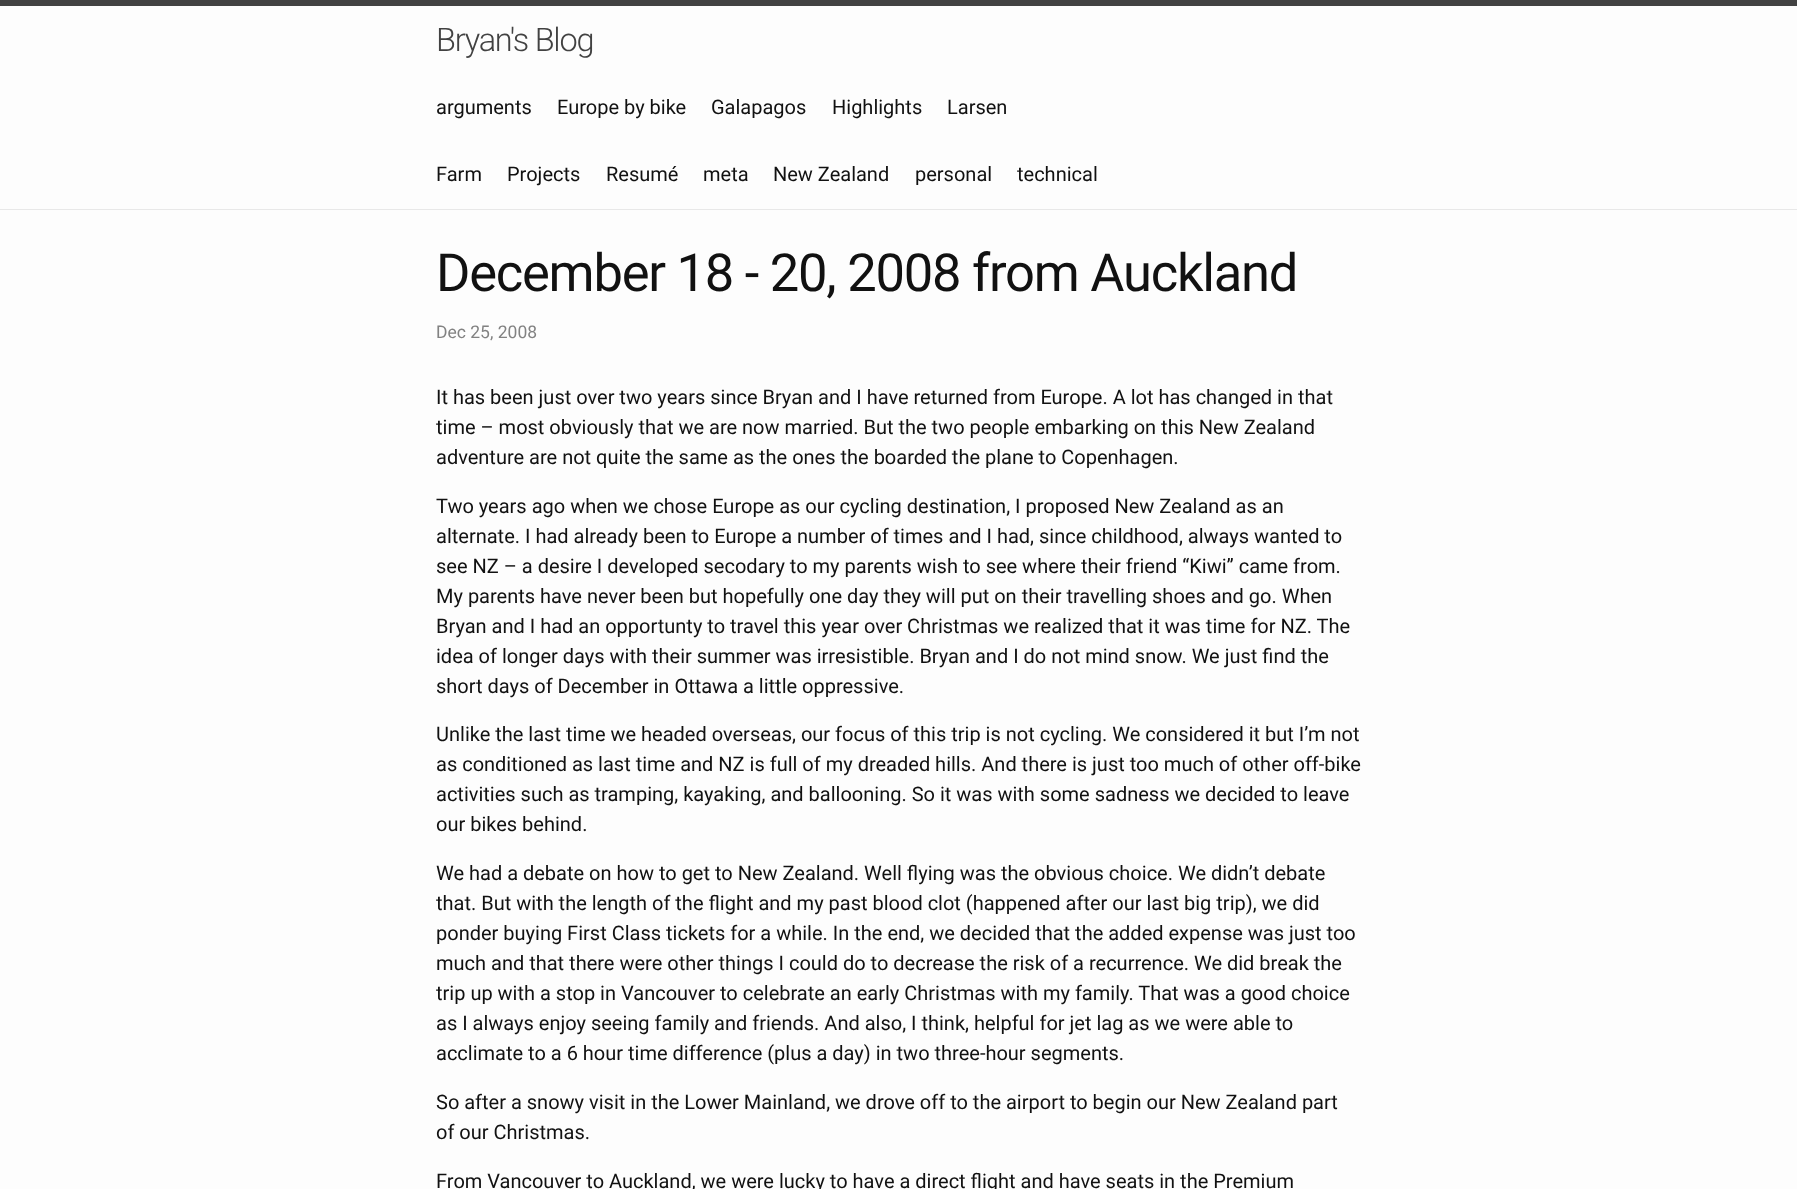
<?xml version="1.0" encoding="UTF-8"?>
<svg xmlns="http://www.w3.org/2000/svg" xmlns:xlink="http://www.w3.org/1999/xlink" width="1797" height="1189">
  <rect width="100%" height="100%" fill="#fdfdfd" />
  <rect width="1797" height="6" fill="#424242" />
  <rect y="209" width="1797" height="1" fill="#e8e8e8" />
  <text x="436" y="51" style="font-family: Roboto; font-size: 32.5px; font-weight: 300; letter-spacing: -1.25px; fill: #424242">Bryan's Blog</text>
  <text x="436" y="114" style="font-family: Roboto; font-size: 20px; fill: #111111">arguments</text>
  <text x="557" y="114" style="font-family: Roboto; font-size: 20px; fill: #111111">Europe by bike</text>
  <text x="711" y="114" style="font-family: Roboto; font-size: 20px; fill: #111111">Galapagos</text>
  <text x="832" y="114" style="font-family: Roboto; font-size: 20px; fill: #111111">Highlights</text>
  <text x="947" y="114" style="font-family: Roboto; font-size: 20px; fill: #111111">Larsen</text>
  <text x="436" y="181" style="font-family: Roboto; font-size: 20px; fill: #111111">Farm</text>
  <text x="507" y="181" style="font-family: Roboto; font-size: 20px; fill: #111111">Projects</text>
  <text x="606" y="181" style="font-family: Roboto; font-size: 20px; fill: #111111">Resumé</text>
  <text x="703" y="181" style="font-family: Roboto; font-size: 20px; fill: #111111">meta</text>
  <text x="773" y="181" style="font-family: Roboto; font-size: 20px; fill: #111111">New Zealand</text>
  <text x="915" y="181" style="font-family: Roboto; font-size: 20px; fill: #111111">personal</text>
  <text x="1017" y="181" style="font-family: Roboto; font-size: 20px; fill: #111111">technical</text>
  <text x="436" y="291" style="font-family: Roboto; font-size: 52.5px; letter-spacing: -1.25px; fill: #111111">December 18 - 20, 2008 from Auckland</text>
  <text x="436" y="338" style="font-family: Roboto; font-size: 17.5px; fill: #828282">Dec 25, 2008</text>
  <text x="436" y="404" style="font-family: Roboto; font-size: 20px; fill: #111111">It has been just over two years since Bryan and I have returned from Europe. A lot has changed in that</text>
  <text x="436" y="434" style="font-family: Roboto; font-size: 20px; fill: #111111">time – most obviously that we are now married. But the two people embarking on this New Zealand</text>
  <text x="436" y="464" style="font-family: Roboto; font-size: 20px; fill: #111111">adventure are not quite the same as the ones the boarded the plane to Copenhagen.</text>
  <text x="436" y="513" style="font-family: Roboto; font-size: 20px; fill: #111111">Two years ago when we chose Europe as our cycling destination, I proposed New Zealand as an</text>
  <text x="436" y="543" style="font-family: Roboto; font-size: 20px; fill: #111111">alternate. I had already been to Europe a number of times and I had, since childhood, always wanted to</text>
  <text x="436" y="573" style="font-family: Roboto; font-size: 20px; fill: #111111">see NZ – a desire I developed secodary to my parents wish to see where their friend “Kiwi” came from.</text>
  <text x="436" y="603" style="font-family: Roboto; font-size: 20px; fill: #111111">My parents have never been but hopefully one day they will put on their travelling shoes and go. When</text>
  <text x="436" y="633" style="font-family: Roboto; font-size: 20px; fill: #111111">Bryan and I had an opportunty to travel this year over Christmas we realized that it was time for NZ. The</text>
  <text x="436" y="663" style="font-family: Roboto; font-size: 20px; fill: #111111">idea of longer days with their summer was irresistible. Bryan and I do not mind snow. We just find the</text>
  <text x="436" y="693" style="font-family: Roboto; font-size: 20px; fill: #111111">short days of December in Ottawa a little oppressive.</text>
  <text x="436" y="741" style="font-family: Roboto; font-size: 20px; fill: #111111">Unlike the last time we headed overseas, our focus of this trip is not cycling. We considered it but I’m not</text>
  <text x="436" y="771" style="font-family: Roboto; font-size: 20px; fill: #111111">as conditioned as last time and NZ is full of my dreaded hills. And there is just too much of other off-bike</text>
  <text x="436" y="801" style="font-family: Roboto; font-size: 20px; fill: #111111">activities such as tramping, kayaking, and ballooning. So it was with some sadness we decided to leave</text>
  <text x="436" y="831" style="font-family: Roboto; font-size: 20px; fill: #111111">our bikes behind.</text>
  <text x="436" y="880" style="font-family: Roboto; font-size: 20px; fill: #111111">We had a debate on how to get to New Zealand. Well flying was the obvious choice. We didn’t debate</text>
  <text x="436" y="910" style="font-family: Roboto; font-size: 20px; fill: #111111">that. But with the length of the flight and my past blood clot (happened after our last big trip), we did</text>
  <text x="436" y="940" style="font-family: Roboto; font-size: 20px; fill: #111111">ponder buying First Class tickets for a while. In the end, we decided that the added expense was just too</text>
  <text x="436" y="970" style="font-family: Roboto; font-size: 20px; fill: #111111">much and that there were other things I could do to decrease the risk of a recurrence. We did break the</text>
  <text x="436" y="1000" style="font-family: Roboto; font-size: 20px; fill: #111111">trip up with a stop in Vancouver to celebrate an early Christmas with my family. That was a good choice</text>
  <text x="436" y="1030" style="font-family: Roboto; font-size: 20px; fill: #111111">as I always enjoy seeing family and friends. And also, I think, helpful for jet lag as we were able to</text>
  <text x="436" y="1060" style="font-family: Roboto; font-size: 20px; fill: #111111">acclimate to a 6 hour time difference (plus a day) in two three-hour segments.</text>
  <text x="436" y="1109" style="font-family: Roboto; font-size: 20px; fill: #111111">So after a snowy visit in the Lower Mainland, we drove off to the airport to begin our New Zealand part</text>
  <text x="436" y="1139" style="font-family: Roboto; font-size: 20px; fill: #111111">of our Christmas.</text>
  <text x="436" y="1188" style="font-family: Roboto; font-size: 20px; fill: #111111">From Vancouver to Auckland, we were lucky to have a direct flight and have seats in the Premium</text>
</svg>
